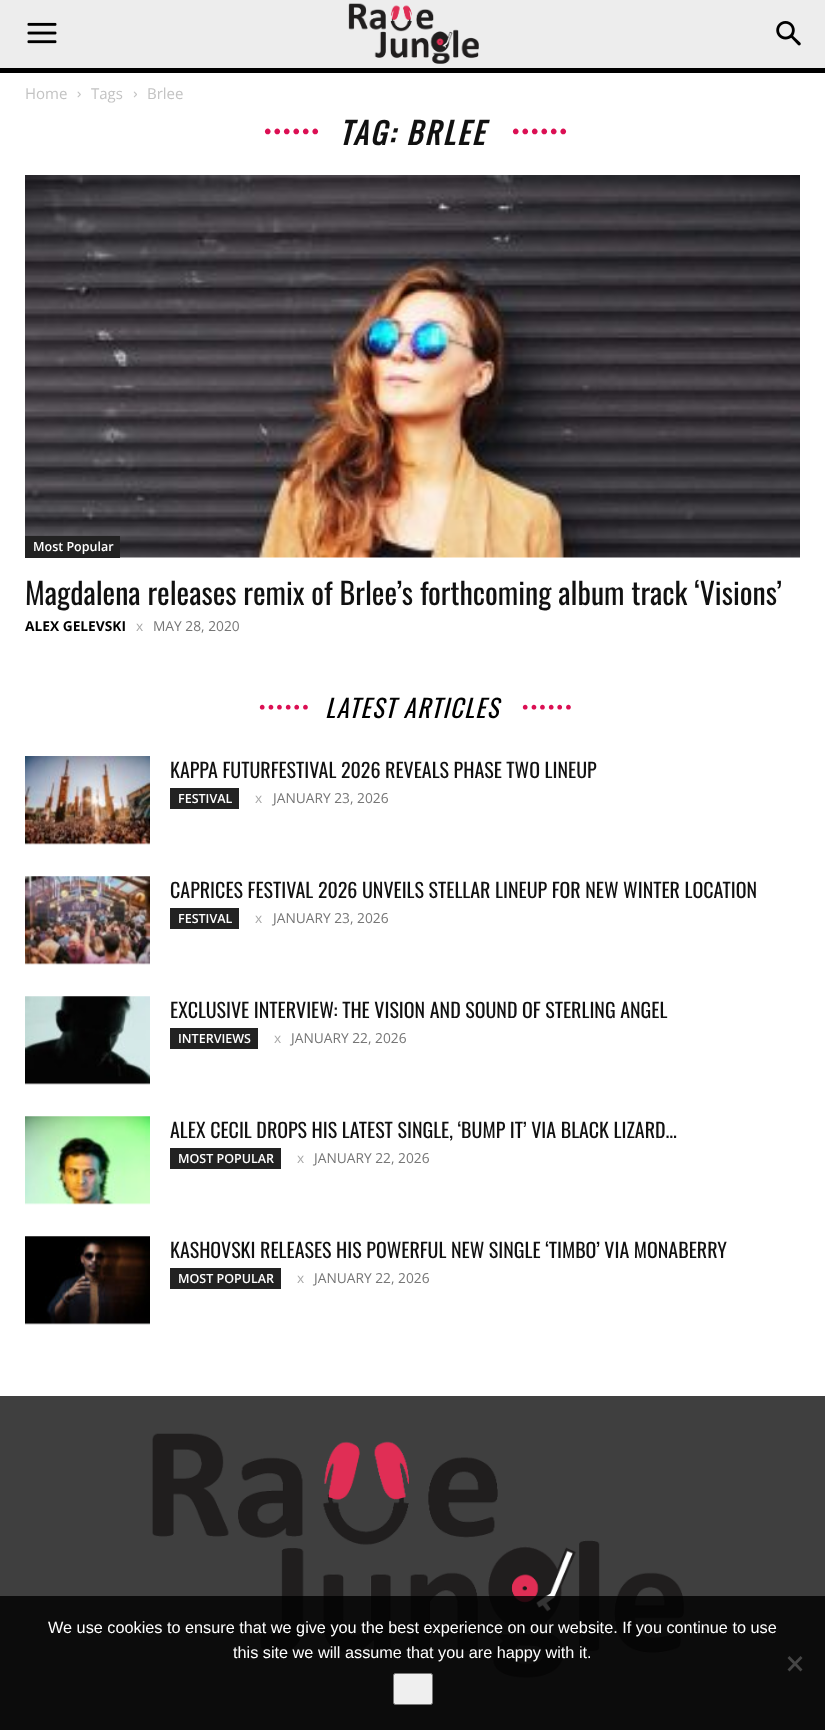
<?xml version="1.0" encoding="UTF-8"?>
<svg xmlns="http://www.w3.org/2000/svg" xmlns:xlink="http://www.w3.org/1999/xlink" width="825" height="1730">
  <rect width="100%" height="100%" fill="#ffffff" />
  <rect width="825" height="68" fill="#ededed" />
  <image x="27" y="22" width="30" height="22" xlink:href="image1.png" />
  <image x="348" y="3" width="131" height="61" xlink:href="image2.png" />
  <image x="776" y="21" width="25" height="25" xlink:href="image3.png" />
  <rect y="68" width="825" height="5" fill="#000000" />
  <image x="77" y="91" width="4" height="7" xlink:href="image4.png" />
  <image x="133" y="91" width="4" height="7" xlink:href="image5.png" />
  <image x="25" y="175" width="775" height="383" xlink:href="image6.png" />
  <rect x="25" y="536" width="95" height="22" fill="#222222" />
  <image x="25" y="756" width="125" height="89" xlink:href="image7.png" />
  <rect x="170" y="788" width="69" height="21" fill="#222222" />
  <image x="25" y="876" width="125" height="89" xlink:href="image8.png" />
  <rect x="170" y="908" width="69" height="21" fill="#222222" />
  <image x="25" y="996" width="125" height="89" xlink:href="image9.png" />
  <rect x="170" y="1028" width="88" height="21" fill="#222222" />
  <image x="25" y="1116" width="125" height="89" xlink:href="image10.png" />
  <rect x="170" y="1148" width="111" height="21" fill="#222222" />
  <image x="25" y="1236" width="125" height="89" xlink:href="image11.png" />
  <rect x="170" y="1268" width="111" height="21" fill="#222222" />
  <rect y="1396" width="825" height="334" fill="#3f3f3f" />
  <image x="152" y="1433" width="532" height="245" xlink:href="image12.png" />
  <rect y="1596" width="825" height="134" fill="#000000" fill-opacity="0.8" />
  <path d="M 800.5 1656 l 2 2 l -13 13.5 l -2 -2 z" fill="#464646" />
  <path d="M 787.5 1658 l 2 -2 l 13 13.5 l -2 2 z" fill="#464646" />
  <rect x="393.5" y="1673.5" width="39" height="31" rx="2" fill="#efefef" stroke="#767676" />
  <text x="25" y="99" style="font-family: Open Sans; font-size: 15px; fill: #c3c3c3">Home</text>
  <text x="91" y="99" style="font-family: Open Sans; font-size: 15px; fill: #c3c3c3">Tags</text>
  <text x="147" y="99" style="font-family: Open Sans; font-size: 15px; fill: #c3c3c3">Brlee</text>
  <text x="264" y="138" style="font-family: Liberation Sans; font-size: 20px; font-weight: bold; font-style: italic; letter-spacing: 2.5px; fill: #db0f53">••••••</text>
  <text x="339" y="145" style="font-family: Oswald; font-size: 30px; font-weight: bold; font-style: italic; letter-spacing: 2.5px; fill: #111111">TAG: BRLEE</text>
  <text x="512" y="138" style="font-family: Liberation Sans; font-size: 20px; font-weight: bold; font-style: italic; letter-spacing: 2.5px; fill: #db0f53">••••••</text>
  <text x="33" y="551" style="font-family: Open Sans; font-size: 12.5px; font-weight: 600; fill: #ffffff">Most Popular</text>
  <text x="25" y="605" style="font-family: Oswald; font-size: 30px; fill: #111111">Magdalena releases remix of Brlee’s forthcoming album track ‘Visions’</text>
  <text x="25" y="631" style="font-family: Open Sans; font-size: 13.75px; font-weight: bold; fill: #000000">ALEX GELEVSKI</text>
  <text x="136" y="631" style="font-family: Open Sans; font-size: 13.75px; fill: #aaaaaa">x</text>
  <text x="153" y="631" style="font-family: Open Sans; font-size: 13.75px; fill: #767676">MAY 28, 2020</text>
  <text x="259" y="713" style="font-family: Liberation Sans; font-size: 17.5px; font-style: italic; letter-spacing: 2.5px; fill: #db0f53">••••••</text>
  <text x="325" y="718" style="font-family: Oswald; font-size: 25px; font-style: italic; letter-spacing: 1.25px; fill: #000000">LATEST ARTICLES</text>
  <text x="522" y="713" style="font-family: Liberation Sans; font-size: 17.5px; font-style: italic; letter-spacing: 2.5px; fill: #db0f53">••••••</text>
  <text x="170" y="778" style="font-family: Oswald; font-size: 20px; fill: #111111">KAPPA FUTURFESTIVAL 2026 REVEALS PHASE TWO LINEUP</text>
  <text x="178" y="803" style="font-family: Open Sans; font-size: 12.5px; font-weight: 600; fill: #ffffff">FESTIVAL</text>
  <text x="255" y="803" style="font-family: Open Sans; font-size: 13.75px; fill: #aaaaaa">x</text>
  <text x="273" y="803" style="font-family: Open Sans; font-size: 13.75px; fill: #767676">JANUARY 23, 2026</text>
  <text x="170" y="898" style="font-family: Oswald; font-size: 20px; fill: #111111">CAPRICES FESTIVAL 2026 UNVEILS STELLAR LINEUP FOR NEW WINTER LOCATION</text>
  <text x="178" y="923" style="font-family: Open Sans; font-size: 12.5px; font-weight: 600; fill: #ffffff">FESTIVAL</text>
  <text x="255" y="923" style="font-family: Open Sans; font-size: 13.75px; fill: #aaaaaa">x</text>
  <text x="273" y="923" style="font-family: Open Sans; font-size: 13.75px; fill: #767676">JANUARY 23, 2026</text>
  <text x="170" y="1018" style="font-family: Oswald; font-size: 20px; fill: #111111">EXCLUSIVE INTERVIEW: THE VISION AND SOUND OF STERLING ANGEL</text>
  <text x="178" y="1043" style="font-family: Open Sans; font-size: 12.5px; font-weight: 600; fill: #ffffff">INTERVIEWS</text>
  <text x="274" y="1043" style="font-family: Open Sans; font-size: 13.75px; fill: #aaaaaa">x</text>
  <text x="291" y="1043" style="font-family: Open Sans; font-size: 13.75px; fill: #767676">JANUARY 22, 2026</text>
  <text x="170" y="1138" style="font-family: Oswald; font-size: 20px; fill: #111111">ALEX CECIL DROPS HIS LATEST SINGLE, ‘BUMP IT’ VIA BLACK LIZARD...</text>
  <text x="178" y="1163" style="font-family: Open Sans; font-size: 12.5px; font-weight: 600; fill: #ffffff">MOST POPULAR</text>
  <text x="297" y="1163" style="font-family: Open Sans; font-size: 13.75px; fill: #aaaaaa">x</text>
  <text x="314" y="1163" style="font-family: Open Sans; font-size: 13.75px; fill: #767676">JANUARY 22, 2026</text>
  <text x="170" y="1258" style="font-family: Oswald; font-size: 20px; fill: #111111">KASHOVSKI RELEASES HIS POWERFUL NEW SINGLE ‘TIMBO’ VIA MONABERRY</text>
  <text x="178" y="1283" style="font-family: Open Sans; font-size: 12.5px; font-weight: 600; fill: #ffffff">MOST POPULAR</text>
  <text x="297" y="1283" style="font-family: Open Sans; font-size: 13.75px; fill: #aaaaaa">x</text>
  <text x="314" y="1283" style="font-family: Open Sans; font-size: 13.75px; fill: #767676">JANUARY 22, 2026</text>
  <text x="48" y="1633" style="font-family: Liberation Sans; font-size: 16.25px; fill: #ffffff">We use cookies to ensure that we give you the best experience on our website. If you continue to use</text>
  <text x="233" y="1658" style="font-family: Liberation Sans; font-size: 16.25px; fill: #ffffff">this site we will assume that you are happy with it.</text>
</svg>
